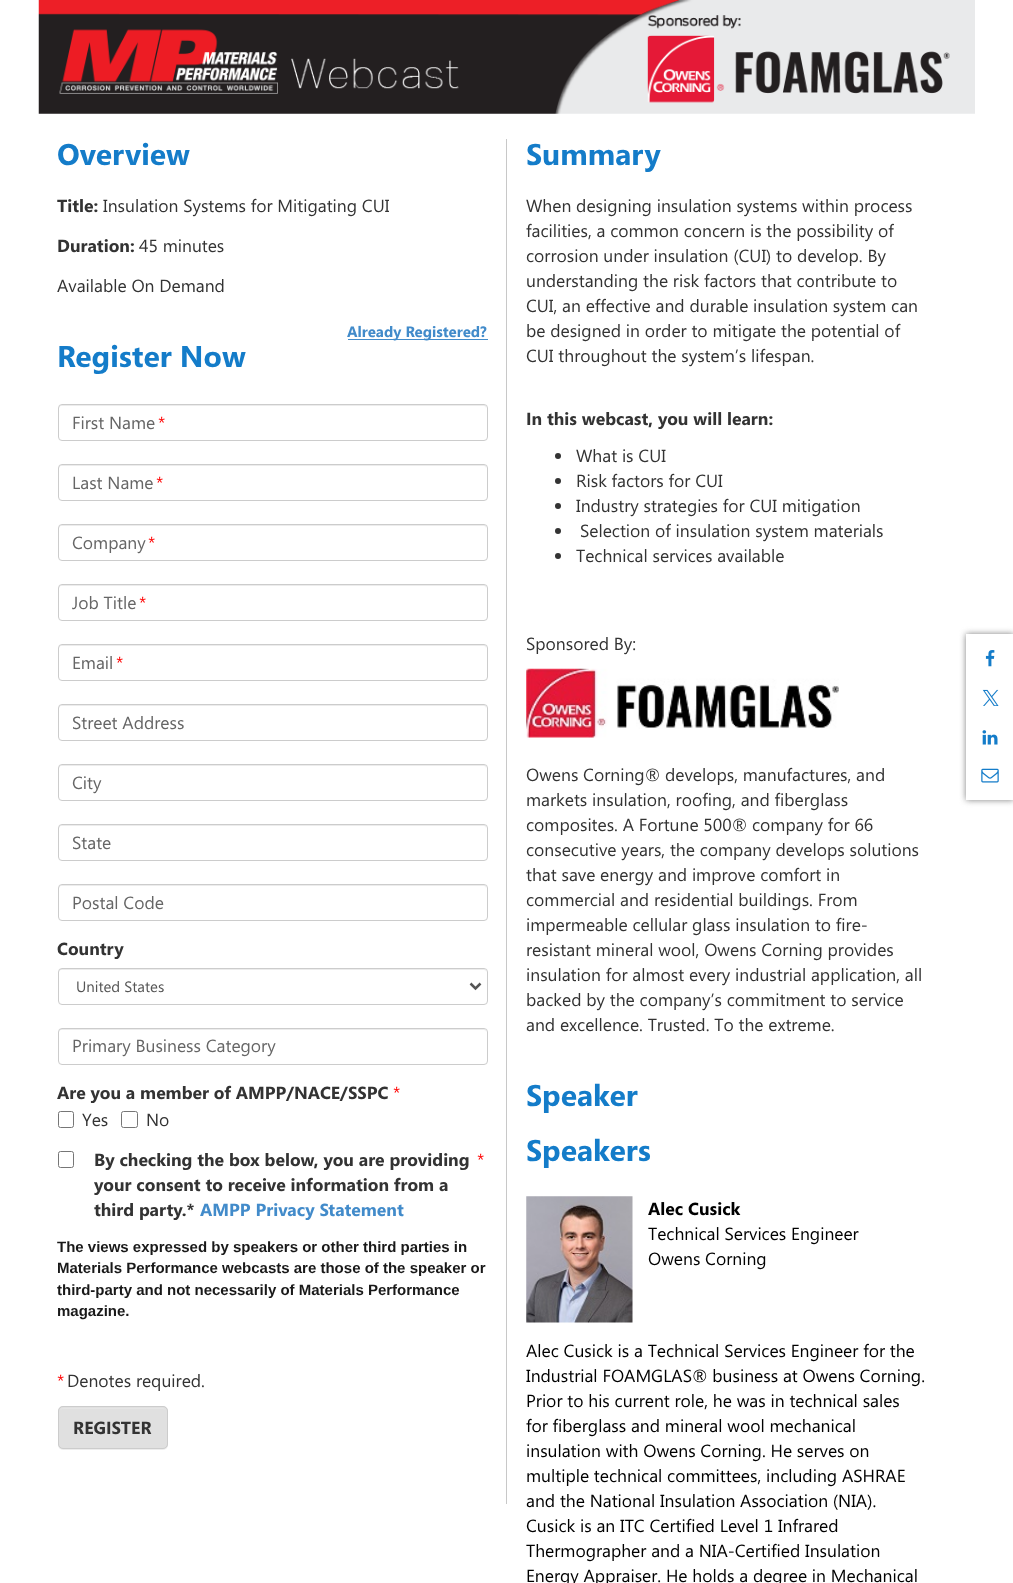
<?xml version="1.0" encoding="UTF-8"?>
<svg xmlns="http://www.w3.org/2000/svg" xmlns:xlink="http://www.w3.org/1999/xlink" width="1013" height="1583">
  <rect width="100%" height="100%" fill="#ffffff" />
  <image x="38" y="0" width="937" height="114" xlink:href="image1.png" />
  <rect x="506" y="139" width="1" height="1365" fill="#c8c8c8" />
  <rect x="348" y="339" width="140" height="1" fill="#428bca" />
  <path d="M 61 406 h 423 c 1 0 2 1 2 3 c 0 -2 0 -4 -2 -4 h -422 l -3 1 v 3 c 0 -2 1 -3 2 -3 z" fill="#ececec" />
  <rect x="58.5" y="404.5" width="429" height="36" rx="3.5" fill="none" stroke="#cccccc" />
  <path d="M 61 466 h 423 c 1 0 2 1 2 3 c 0 -2 0 -4 -2 -4 h -422 l -3 1 v 3 c 0 -2 1 -3 2 -3 z" fill="#ececec" />
  <rect x="58.5" y="464.5" width="429" height="36" rx="3.5" fill="none" stroke="#cccccc" />
  <path d="M 61 526 h 423 c 1 0 2 1 2 3 c 0 -2 0 -4 -2 -4 h -422 l -3 1 v 3 c 0 -2 1 -3 2 -3 z" fill="#ececec" />
  <rect x="58.5" y="524.5" width="429" height="36" rx="3.5" fill="none" stroke="#cccccc" />
  <path d="M 61 586 h 423 c 1 0 2 1 2 3 c 0 -2 0 -4 -2 -4 h -422 l -3 1 v 3 c 0 -2 1 -3 2 -3 z" fill="#ececec" />
  <rect x="58.5" y="584.5" width="429" height="36" rx="3.5" fill="none" stroke="#cccccc" />
  <path d="M 61 646 h 423 c 1 0 2 1 2 3 c 0 -2 0 -4 -2 -4 h -422 l -3 1 v 3 c 0 -2 1 -3 2 -3 z" fill="#ececec" />
  <rect x="58.5" y="644.5" width="429" height="36" rx="3.5" fill="none" stroke="#cccccc" />
  <path d="M 61 706 h 423 c 1 0 2 1 2 3 c 0 -2 0 -4 -2 -4 h -422 l -3 1 v 3 c 0 -2 1 -3 2 -3 z" fill="#ececec" />
  <rect x="58.5" y="704.5" width="429" height="36" rx="3.5" fill="none" stroke="#cccccc" />
  <path d="M 61 766 h 423 c 1 0 2 1 2 3 c 0 -2 0 -4 -2 -4 h -422 l -3 1 v 3 c 0 -2 1 -3 2 -3 z" fill="#ececec" />
  <rect x="58.5" y="764.5" width="429" height="36" rx="3.5" fill="none" stroke="#cccccc" />
  <path d="M 61 826 h 423 c 1 0 2 1 2 3 c 0 -2 0 -4 -2 -4 h -422 l -3 1 v 3 c 0 -2 1 -3 2 -3 z" fill="#ececec" />
  <rect x="58.5" y="824.5" width="429" height="36" rx="3.5" fill="none" stroke="#cccccc" />
  <path d="M 61 886 h 423 c 1 0 2 1 2 3 c 0 -2 0 -4 -2 -4 h -422 l -3 1 v 3 c 0 -2 1 -3 2 -3 z" fill="#ececec" />
  <rect x="58.5" y="884.5" width="429" height="36" rx="3.5" fill="none" stroke="#cccccc" />
  <path d="M 61 970 h 423 c 1 0 2 1 2 2 c 0 -2 -1 -3 -2 -3 h -422 h -2 l -1 2 v 1 c 0 -1 1 -2 2 -2 z" fill="#ececec" />
  <rect x="58.5" y="968.5" width="429" height="36" rx="3.5" fill="none" stroke="#cccccc" />
  <path d="M 470.5 983.5 l 5 5 l 5 -5" fill="none" stroke="#555555" stroke-width="2.5" />
  <path d="M 61 1030 h 423 c 1 0 2 1 2 2 c 0 -2 -1 -3 -2 -3 h -422 h -2 l -1 2 v 1 c 0 -1 1 -2 2 -2 z" fill="#ececec" />
  <rect x="58.5" y="1028.5" width="429" height="36" rx="3.5" fill="none" stroke="#cccccc" />
  <rect x="58.5" y="1111.5" width="15" height="16" rx="2" fill="none" stroke="#767676" />
  <rect x="121.5" y="1111.5" width="16" height="16" rx="2" fill="none" stroke="#767676" />
  <rect x="58.5" y="1151.5" width="15" height="16" rx="2" fill="none" stroke="#767676" />
  <rect x="58" y="1408" width="110" height="42" rx="5" fill="#000000" fill-opacity="0.07" filter="blur(0.5px)" />
  <rect x="58" y="1406" width="110" height="43" rx="5" fill="#e0e0e0" />
  <path d="M 62 1409 h 101 l 3 1 c -1 -1 -2 -2 -4 -2 h -99 c -1 0 -3 1 -3 2 z" fill="#e5e5e5" />
  <rect x="58.5" y="1406.5" width="109" height="42" rx="4.5" fill="none" stroke="#cccccc" />
  <circle cx="558" cy="456" r="3" fill="#333333" />
  <circle cx="558" cy="481" r="3" fill="#333333" />
  <circle cx="558" cy="506" r="3" fill="#333333" />
  <circle cx="558" cy="531" r="3" fill="#333333" />
  <circle cx="558" cy="556" r="3" fill="#333333" />
  <image x="526" y="668" width="313" height="70" xlink:href="image2.png" />
  <image x="526" y="1196" width="107" height="127" xlink:href="image3.png" />
  <rect x="966" y="634" width="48" height="166" fill="#808080" filter="blur(3px)" />
  <rect x="966" y="634" width="47" height="166" fill="#ffffff" />
  <image x="985" y="650" width="10" height="17" xlink:href="image4.png" />
  <image x="982" y="689" width="17" height="17" xlink:href="image5.png" />
  <image x="982" y="730" width="16" height="15" xlink:href="image6.png" />
  <image x="981" y="768" width="18" height="15" xlink:href="image7.png" />
  <text x="57" y="165" style="font-family: Segoe UI; font-size: 30px; font-weight: bold; fill: #147cc9">Overview</text>
  <text x="57" y="212" style="font-family: Segoe UI; font-size: 17.5px; font-weight: bold; fill: #333333">Title:</text>
  <text x="103" y="212" style="font-family: Segoe UI; font-size: 17.5px; fill: #333333">Insulation Systems for Mitigating CUI</text>
  <text x="57" y="252" style="font-family: Segoe UI; font-size: 17.5px; font-weight: bold; fill: #333333">Duration:</text>
  <text x="139" y="252" style="font-family: Segoe UI; font-size: 17.5px; fill: #333333">45 minutes</text>
  <text x="57" y="292" style="font-family: Segoe UI; font-size: 17.5px; fill: #333333">Available On Demand</text>
  <text x="347" y="337" style="font-family: Segoe UI; font-size: 15px; font-weight: bold; fill: #428bca">Already Registered?</text>
  <text x="57" y="367" style="font-family: Segoe UI; font-size: 30px; font-weight: bold; fill: #147cc9">Register Now</text>
  <text x="72" y="429" style="font-family: Segoe UI; font-size: 17.5px; fill: #666666">First Name</text>
  <text x="158" y="429" style="font-family: Segoe UI; font-size: 17.5px; fill: #ff0000">*</text>
  <text x="72" y="489" style="font-family: Segoe UI; font-size: 17.5px; fill: #666666">Last Name</text>
  <text x="156" y="489" style="font-family: Segoe UI; font-size: 17.5px; fill: #ff0000">*</text>
  <text x="72" y="549" style="font-family: Segoe UI; font-size: 17.5px; fill: #666666">Company</text>
  <text x="148" y="549" style="font-family: Segoe UI; font-size: 17.5px; fill: #ff0000">*</text>
  <text x="72" y="609" style="font-family: Segoe UI; font-size: 17.5px; fill: #666666">Job Title</text>
  <text x="139" y="609" style="font-family: Segoe UI; font-size: 17.5px; fill: #ff0000">*</text>
  <text x="72" y="669" style="font-family: Segoe UI; font-size: 17.5px; fill: #666666">Email</text>
  <text x="116" y="669" style="font-family: Segoe UI; font-size: 17.5px; fill: #ff0000">*</text>
  <text x="72" y="729" style="font-family: Segoe UI; font-size: 17.5px; fill: #666666">Street Address</text>
  <text x="72" y="789" style="font-family: Segoe UI; font-size: 17.5px; fill: #666666">City</text>
  <text x="72" y="849" style="font-family: Segoe UI; font-size: 17.5px; fill: #666666">State</text>
  <text x="72" y="909" style="font-family: Segoe UI; font-size: 17.5px; fill: #666666">Postal Code</text>
  <text x="57" y="955" style="font-family: Segoe UI; font-size: 17.5px; font-weight: bold; fill: #333333">Country</text>
  <text x="76" y="992" style="font-family: Segoe UI; font-size: 15px; fill: #555555">United States</text>
  <text x="72" y="1052" style="font-family: Segoe UI; font-size: 17.5px; fill: #666666">Primary Business Category</text>
  <text x="57" y="1099" style="font-family: Segoe UI; font-size: 17.5px; font-weight: bold; fill: #333333">Are you a member of AMPP/NACE/SSPC</text>
  <text x="393" y="1099" style="font-family: Segoe UI; font-size: 17.5px; fill: #ff0000">*</text>
  <text x="82" y="1126" style="font-family: Segoe UI; font-size: 17.5px; fill: #333333">Yes</text>
  <text x="146" y="1126" style="font-family: Segoe UI; font-size: 17.5px; fill: #333333">No</text>
  <text x="94" y="1166" style="font-family: Segoe UI; font-size: 17.5px; font-weight: bold; fill: #333333">By checking the box below, you are providing</text>
  <text x="94" y="1191" style="font-family: Segoe UI; font-size: 17.5px; font-weight: bold; fill: #333333">your consent to receive information from a</text>
  <text x="94" y="1216" style="font-family: Segoe UI; font-size: 17.5px; font-weight: bold; fill: #333333">third party.*</text>
  <text x="200" y="1216" style="font-family: Segoe UI; font-size: 17.5px; font-weight: bold; fill: #428bca">AMPP Privacy Statement</text>
  <text x="477" y="1166" style="font-family: Segoe UI; font-size: 17.5px; fill: #ff0000">*</text>
  <text x="57" y="1252" style="font-family: Liberation Sans; font-size: 15px; font-weight: bold; fill: #191919">The views expressed by speakers or other third parties in</text>
  <text x="57" y="1273" style="font-family: Liberation Sans; font-size: 15px; font-weight: bold; fill: #191919">Materials Performance webcasts are those of the speaker or</text>
  <text x="57" y="1295" style="font-family: Liberation Sans; font-size: 15px; font-weight: bold; fill: #191919">third-party and not necessarily of Materials Performance</text>
  <text x="57" y="1316" style="font-family: Liberation Sans; font-size: 15px; font-weight: bold; fill: #191919">magazine.</text>
  <text x="57" y="1387" style="font-family: Segoe UI; font-size: 17.5px; fill: #ff0000">*</text>
  <text x="67" y="1387" style="font-family: Segoe UI; font-size: 17.5px; fill: #333333">Denotes required.</text>
  <text x="73" y="1434" style="font-family: Segoe UI; font-size: 17.5px; font-weight: bold; fill: #333333">REGISTER</text>
  <text x="526" y="165" style="font-family: Segoe UI; font-size: 30px; font-weight: bold; fill: #147cc9">Summary</text>
  <text x="526" y="212" style="font-family: Segoe UI; font-size: 17.5px; fill: #333333">When designing insulation systems within process</text>
  <text x="526" y="237" style="font-family: Segoe UI; font-size: 17.5px; fill: #333333">facilities, a common concern is the possibility of</text>
  <text x="526" y="262" style="font-family: Segoe UI; font-size: 17.5px; fill: #333333">corrosion under insulation (CUI) to develop. By</text>
  <text x="526" y="287" style="font-family: Segoe UI; font-size: 17.5px; fill: #333333">understanding the risk factors that contribute to</text>
  <text x="526" y="312" style="font-family: Segoe UI; font-size: 17.5px; fill: #333333">CUI, an effective and durable insulation system can</text>
  <text x="526" y="337" style="font-family: Segoe UI; font-size: 17.5px; fill: #333333">be designed in order to mitigate the potential of</text>
  <text x="526" y="362" style="font-family: Segoe UI; font-size: 17.5px; fill: #333333">CUI throughout the system’s lifespan.</text>
  <text x="526" y="425" style="font-family: Segoe UI; font-size: 17.5px; font-weight: bold; fill: #333333">In this webcast, you will learn:</text>
  <text x="576" y="462" style="font-family: Segoe UI; font-size: 17.5px; fill: #333333">What is CUI</text>
  <text x="576" y="487" style="font-family: Segoe UI; font-size: 17.5px; fill: #333333">Risk factors for CUI</text>
  <text x="576" y="512" style="font-family: Segoe UI; font-size: 17.5px; fill: #333333">Industry strategies for CUI mitigation</text>
  <text x="580" y="537" style="font-family: Segoe UI; font-size: 17.5px; fill: #333333">Selection of insulation system materials</text>
  <text x="576" y="562" style="font-family: Segoe UI; font-size: 17.5px; fill: #333333">Technical services available</text>
  <text x="526" y="650" style="font-family: Segoe UI; font-size: 17.5px; fill: #333333">Sponsored By:</text>
  <text x="526" y="781" style="font-family: Segoe UI; font-size: 17.5px; fill: #333333">Owens Corning® develops, manufactures, and</text>
  <text x="526" y="806" style="font-family: Segoe UI; font-size: 17.5px; fill: #333333">markets insulation, roofing, and fiberglass</text>
  <text x="526" y="831" style="font-family: Segoe UI; font-size: 17.5px; fill: #333333">composites. A Fortune 500® company for 66</text>
  <text x="526" y="856" style="font-family: Segoe UI; font-size: 17.5px; fill: #333333">consecutive years, the company develops solutions</text>
  <text x="526" y="881" style="font-family: Segoe UI; font-size: 17.5px; fill: #333333">that save energy and improve comfort in</text>
  <text x="526" y="906" style="font-family: Segoe UI; font-size: 17.5px; fill: #333333">commercial and residential buildings. From</text>
  <text x="526" y="931" style="font-family: Segoe UI; font-size: 17.5px; fill: #333333">impermeable cellular glass insulation to fire-</text>
  <text x="526" y="956" style="font-family: Segoe UI; font-size: 17.5px; fill: #333333">resistant mineral wool, Owens Corning provides</text>
  <text x="526" y="981" style="font-family: Segoe UI; font-size: 17.5px; fill: #333333">insulation for almost every industrial application, all</text>
  <text x="526" y="1006" style="font-family: Segoe UI; font-size: 17.5px; fill: #333333">backed by the company’s commitment to service</text>
  <text x="526" y="1031" style="font-family: Segoe UI; font-size: 17.5px; fill: #333333">and excellence. Trusted. To the extreme.</text>
  <text x="526" y="1106" style="font-family: Segoe UI; font-size: 30px; font-weight: bold; fill: #147cc9">Speaker</text>
  <text x="526" y="1161" style="font-family: Segoe UI; font-size: 30px; font-weight: bold; fill: #147cc9">Speakers</text>
  <text x="648" y="1215" style="font-family: Segoe UI; font-size: 17.5px; font-weight: bold; fill: #000000">Alec Cusick</text>
  <text x="648" y="1240" style="font-family: Segoe UI; font-size: 17.5px; fill: #000000">Technical Services Engineer</text>
  <text x="648" y="1265" style="font-family: Segoe UI; font-size: 17.5px; fill: #000000">Owens Corning</text>
  <text x="526" y="1357" style="font-family: Segoe UI; font-size: 17.5px; fill: #000000">Alec Cusick is a Technical Services Engineer for the</text>
  <text x="526" y="1382" style="font-family: Segoe UI; font-size: 17.5px; fill: #000000">Industrial FOAMGLAS® business at Owens Corning.</text>
  <text x="526" y="1407" style="font-family: Segoe UI; font-size: 17.5px; fill: #000000">Prior to his current role, he was in technical sales</text>
  <text x="526" y="1432" style="font-family: Segoe UI; font-size: 17.5px; fill: #000000">for fiberglass and mineral wool mechanical</text>
  <text x="526" y="1457" style="font-family: Segoe UI; font-size: 17.5px; fill: #000000">insulation with Owens Corning. He serves on</text>
  <text x="526" y="1482" style="font-family: Segoe UI; font-size: 17.5px; fill: #000000">multiple technical committees, including ASHRAE</text>
  <text x="526" y="1507" style="font-family: Segoe UI; font-size: 17.5px; fill: #000000">and the National Insulation Association (NIA).</text>
  <text x="526" y="1532" style="font-family: Segoe UI; font-size: 17.5px; fill: #000000">Cusick is an ITC Certified Level 1 Infrared</text>
  <text x="526" y="1557" style="font-family: Segoe UI; font-size: 17.5px; fill: #000000">Thermographer and a NIA-Certified Insulation</text>
  <text x="526" y="1582" style="font-family: Segoe UI; font-size: 17.5px; fill: #000000">Energy Appraiser. He holds a degree in Mechanical</text>
</svg>
